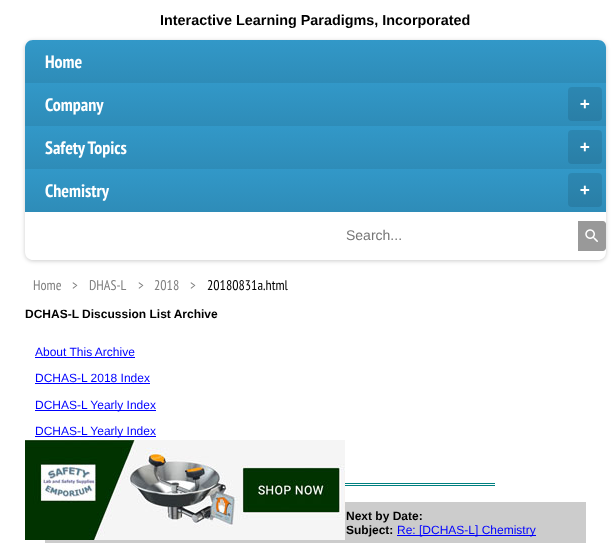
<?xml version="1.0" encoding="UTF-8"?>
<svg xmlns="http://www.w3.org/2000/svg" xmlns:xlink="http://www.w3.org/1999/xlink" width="614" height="543">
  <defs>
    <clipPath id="clip1"><path d="M 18 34 h 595 v 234 h -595 z m 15 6 h 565 c 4.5 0 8 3.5 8 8 v 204 c 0 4.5 -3.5 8 -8 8 h -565 c -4.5 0 -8 -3.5 -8 -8 v -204 c 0 -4.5 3.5 -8 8 -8 z" clip-rule="evenodd" /></clipPath>
    <linearGradient id="g1" gradientUnits="userSpaceOnUse" x1="316" y1="40" x2="316" y2="83"><stop offset="0" stop-color="#3298c8" /><stop offset="1" stop-color="#2e8cb8" /></linearGradient>
    <linearGradient id="g2" gradientUnits="userSpaceOnUse" x1="316" y1="83" x2="316" y2="126"><stop offset="0" stop-color="#3298c8" /><stop offset="1" stop-color="#2e8cb8" /></linearGradient>
    <linearGradient id="g3" gradientUnits="userSpaceOnUse" x1="316" y1="126" x2="316" y2="169"><stop offset="0" stop-color="#3298c8" /><stop offset="1" stop-color="#2e8cb8" /></linearGradient>
    <linearGradient id="g4" gradientUnits="userSpaceOnUse" x1="316" y1="169" x2="316" y2="212"><stop offset="0" stop-color="#3298c8" /><stop offset="1" stop-color="#2e8cb8" /></linearGradient>
  </defs>
  <rect width="100%" height="100%" fill="#ffffff" />
  <g clip-path="url(#clip1)">
    <rect x="25" y="41" width="581" height="220" rx="8" fill="#000000" fill-opacity="0.2" filter="blur(2px)" />
  </g>
  <path d="M 33 40 h 565 c 4.5 0 8 3.5 8 8 v 35 h -581 v -35 c 0 -4.5 3.5 -8 8 -8 z" fill="url(#g1)" />
  <rect x="25" y="83" width="581" height="43" fill="url(#g2)" />
  <rect x="568" y="87" width="34" height="34" rx="4" fill="#000000" fill-opacity="0.1" />
  <rect x="25" y="126" width="581" height="43" fill="url(#g3)" />
  <rect x="568" y="130" width="34" height="34" rx="4" fill="#000000" fill-opacity="0.1" />
  <rect x="25" y="169" width="581" height="43" fill="url(#g4)" />
  <rect x="568" y="173" width="34" height="34" rx="4" fill="#000000" fill-opacity="0.1" />
  <path d="M 578 221 h 25 c 1.5 0 3 1.5 3 3 v 24 c 0 1.5 -1.5 3 -3 3 h -25 z" fill="#999999" />
  <image x="585" y="229" width="13" height="13" xlink:href="image1.png" />
  <rect x="35" y="357" width="100" height="1" fill="#0000ff" />
  <rect x="35" y="383" width="115" height="1" fill="#0000ff" />
  <rect x="35" y="410" width="121" height="1" fill="#0000ff" />
  <rect x="35" y="436" width="121" height="1" fill="#0000ff" />
  <rect x="345" y="483" width="150" height="1" fill="#008080" />
  <rect x="345" y="485" width="150" height="1" fill="#008080" />
  <rect x="45" y="502" width="541" height="41" fill="#cccccc" />
  <rect x="397" y="535" width="139" height="1" fill="#0000ff" />
  <image x="25" y="440" width="320" height="100" xlink:href="image2.png" />
  <text x="160" y="25" style="font-family: Liberation Sans; font-size: 14.4px; font-weight: bold; fill: #000000">Interactive Learning Paradigms, Incorporated</text>
  <text x="45" y="68" style="font-family: PT Sans Narrow; font-size: 18px; font-weight: bold; fill: #ffffff">Home</text>
  <text x="45" y="111" style="font-family: PT Sans Narrow; font-size: 18px; font-weight: bold; fill: #ffffff">Company</text>
  <text x="580" y="109" style="font-family: DejaVu Sans Mono; font-size: 16px; font-weight: bold; fill: #ffffff">+</text>
  <text x="45" y="154" style="font-family: PT Sans Narrow; font-size: 18px; font-weight: bold; fill: #ffffff">Safety Topics</text>
  <text x="580" y="152" style="font-family: DejaVu Sans Mono; font-size: 16px; font-weight: bold; fill: #ffffff">+</text>
  <text x="45" y="197" style="font-family: PT Sans Narrow; font-size: 18px; font-weight: bold; fill: #ffffff">Chemistry</text>
  <text x="580" y="195" style="font-family: DejaVu Sans Mono; font-size: 16px; font-weight: bold; fill: #ffffff">+</text>
  <text x="346" y="240" style="font-family: Liberation Sans; font-size: 14px; fill: #757575">Search...</text>
  <text x="33" y="290" style="font-family: PT Sans Narrow; font-size: 14px; fill: #808080">Home</text>
  <text x="72" y="290" style="font-family: PT Sans Narrow; font-size: 14px; fill: #808080">&gt;</text>
  <text x="89" y="290" style="font-family: PT Sans Narrow; font-size: 14px; fill: #808080">DHAS-L</text>
  <text x="138" y="290" style="font-family: PT Sans Narrow; font-size: 14px; fill: #808080">&gt;</text>
  <text x="154" y="290" style="font-family: PT Sans Narrow; font-size: 14px; fill: #808080">2018</text>
  <text x="190" y="290" style="font-family: PT Sans Narrow; font-size: 14px; fill: #808080">&gt;</text>
  <text x="207" y="290" style="font-family: PT Sans Narrow; font-size: 14px; fill: #000000">20180831a.html</text>
  <text x="25" y="318" style="font-family: Liberation Sans; font-size: 12px; font-weight: bold; fill: #000000">DCHAS-L Discussion List Archive</text>
  <text x="35" y="356" style="font-family: Liberation Sans; font-size: 12px; fill: #0000ff">About This Archive</text>
  <text x="35" y="382" style="font-family: Liberation Sans; font-size: 12px; fill: #0000ff">DCHAS-L 2018 Index</text>
  <text x="35" y="409" style="font-family: Liberation Sans; font-size: 12px; fill: #0000ff">DCHAS-L Yearly Index</text>
  <text x="35" y="435" style="font-family: Liberation Sans; font-size: 12px; fill: #0000ff">DCHAS-L Yearly Index</text>
  <text x="346" y="520" style="font-family: Liberation Sans; font-size: 12px; font-weight: bold; fill: #000000">Next by Date:</text>
  <text x="346" y="534" style="font-family: Liberation Sans; font-size: 12px; font-weight: bold; fill: #000000">Subject:</text>
  <text x="397" y="534" style="font-family: Liberation Sans; font-size: 12px; fill: #0000ff">Re: [DCHAS-L] Chemistry</text>
</svg>
